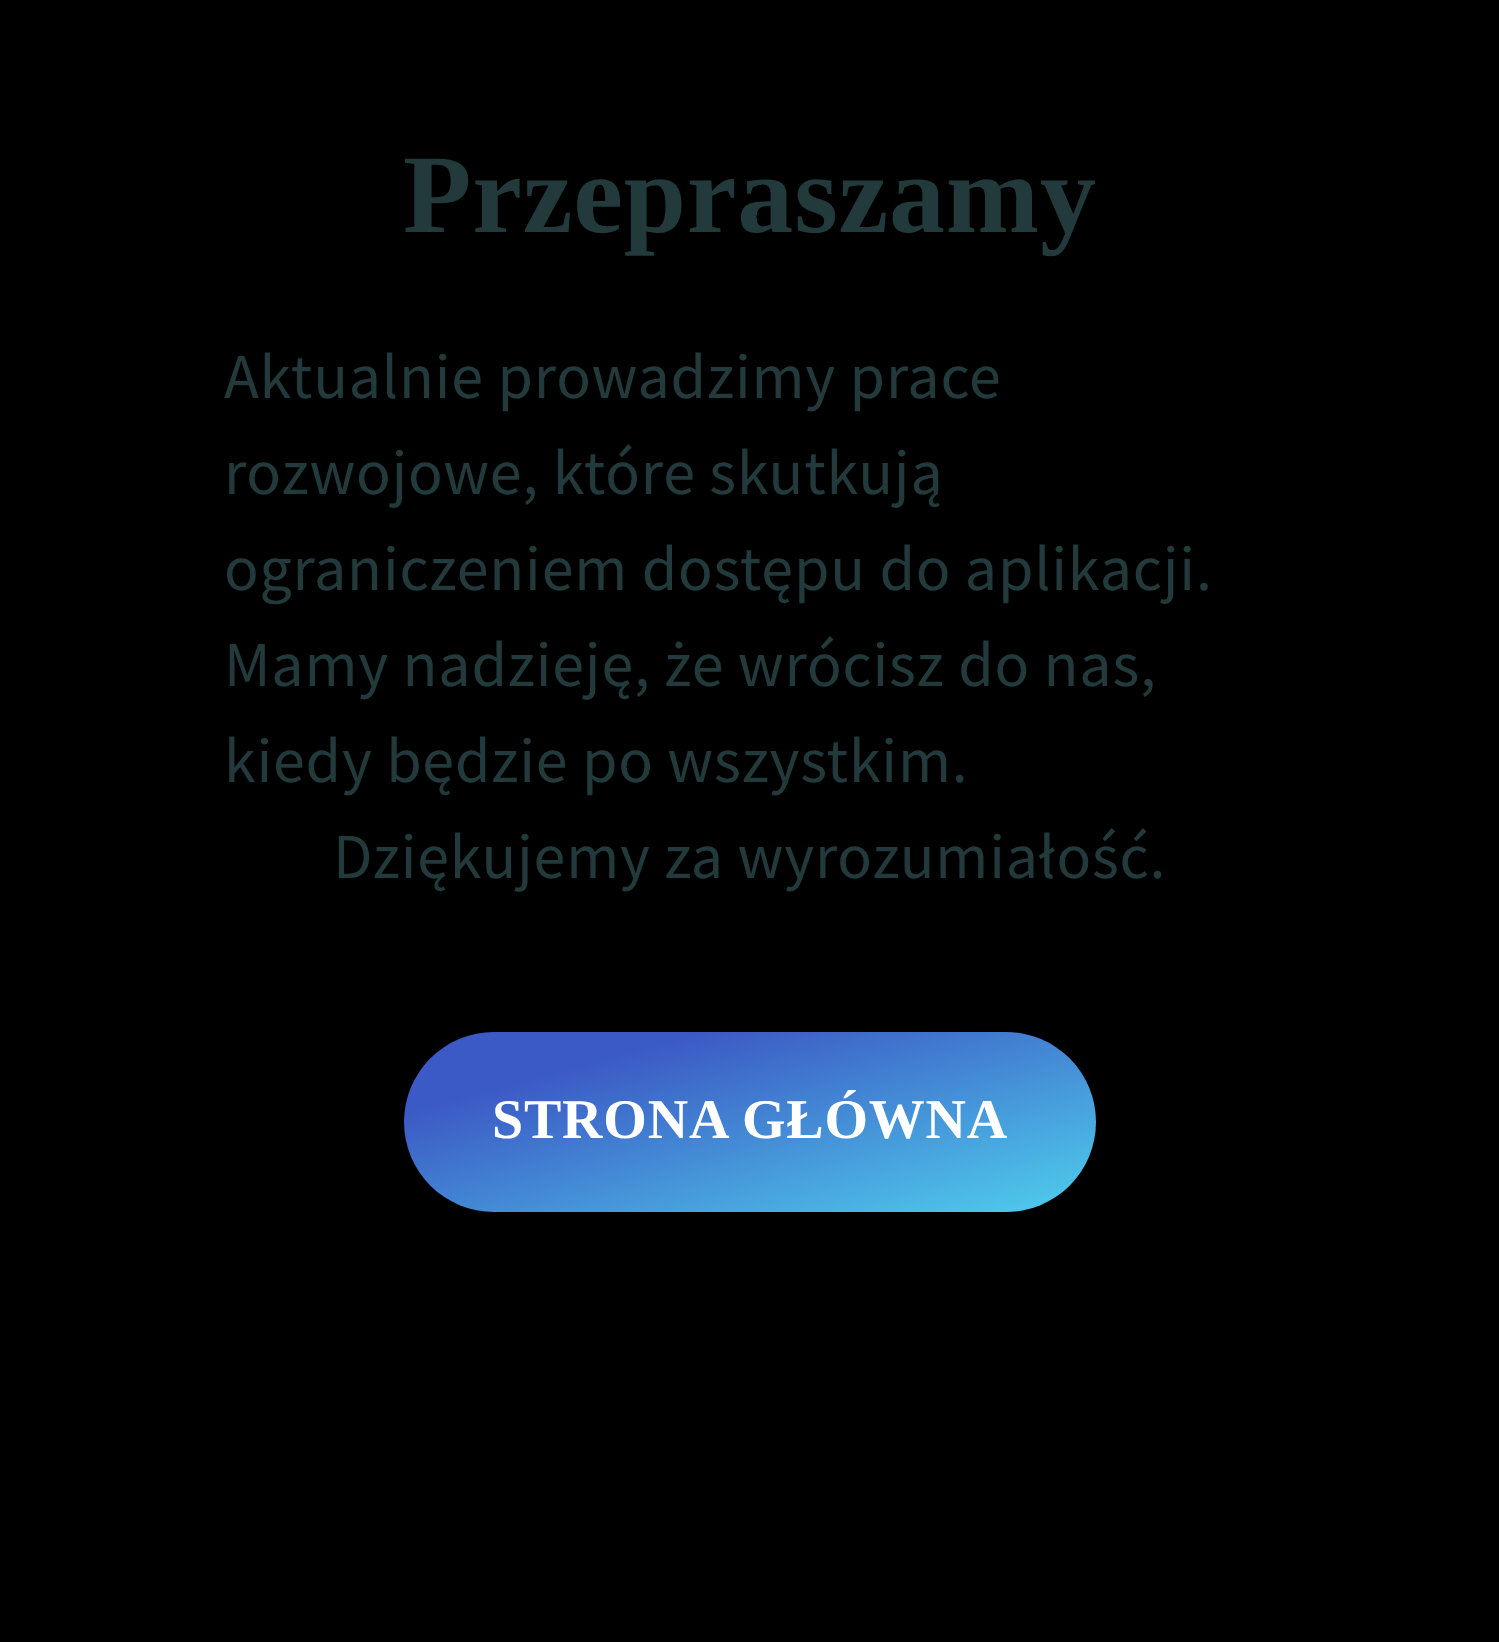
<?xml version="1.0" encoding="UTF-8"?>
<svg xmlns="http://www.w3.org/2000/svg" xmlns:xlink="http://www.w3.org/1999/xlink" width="1499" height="1642">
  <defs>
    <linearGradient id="g1" gradientUnits="userSpaceOnUse" x1="704" y1="952" x2="796" y2="1292"><stop offset="0.22" stop-color="#3c5ac5" /><stop offset="0.93" stop-color="#4dc4e9" /></linearGradient>
  </defs>
  <rect width="100%" height="100%" fill="#000000" />
  <rect x="404" y="1032" width="692" height="180" rx="90" fill="url(#g1)" />
  <text x="403" y="232" style="font-family: Liberation Serif; font-size: 112px; font-weight: bold; letter-spacing: 0.8px; fill: #223a3b">Przepraszamy</text>
  <text x="224" y="398" style="font-family: Source Sans Pro; font-size: 64px; letter-spacing: 0.8px; fill: #223a3b">Aktualnie prowadzimy prace</text>
  <text x="224" y="494" style="font-family: Source Sans Pro; font-size: 64px; letter-spacing: 0.8px; fill: #223a3b">rozwojowe, które skutkują</text>
  <text x="224" y="590" style="font-family: Source Sans Pro; font-size: 64px; letter-spacing: 0.8px; fill: #223a3b">ograniczeniem dostępu do aplikacji.</text>
  <text x="224" y="686" style="font-family: Source Sans Pro; font-size: 64px; letter-spacing: 0.8px; fill: #223a3b">Mamy nadzieję, że wrócisz do nas,</text>
  <text x="224" y="782" style="font-family: Source Sans Pro; font-size: 64px; letter-spacing: 0.8px; fill: #223a3b">kiedy będzie po wszystkim.</text>
  <text x="333" y="878" style="font-family: Source Sans Pro; font-size: 64px; letter-spacing: 0.8px; fill: #223a3b">Dziękujemy za wyrozumiałość.</text>
  <text x="492" y="1138" style="font-family: Liberation Serif; font-size: 56px; font-weight: bold; letter-spacing: 0.8px; fill: #ffffff">STRONA GŁÓWNA</text>
</svg>
